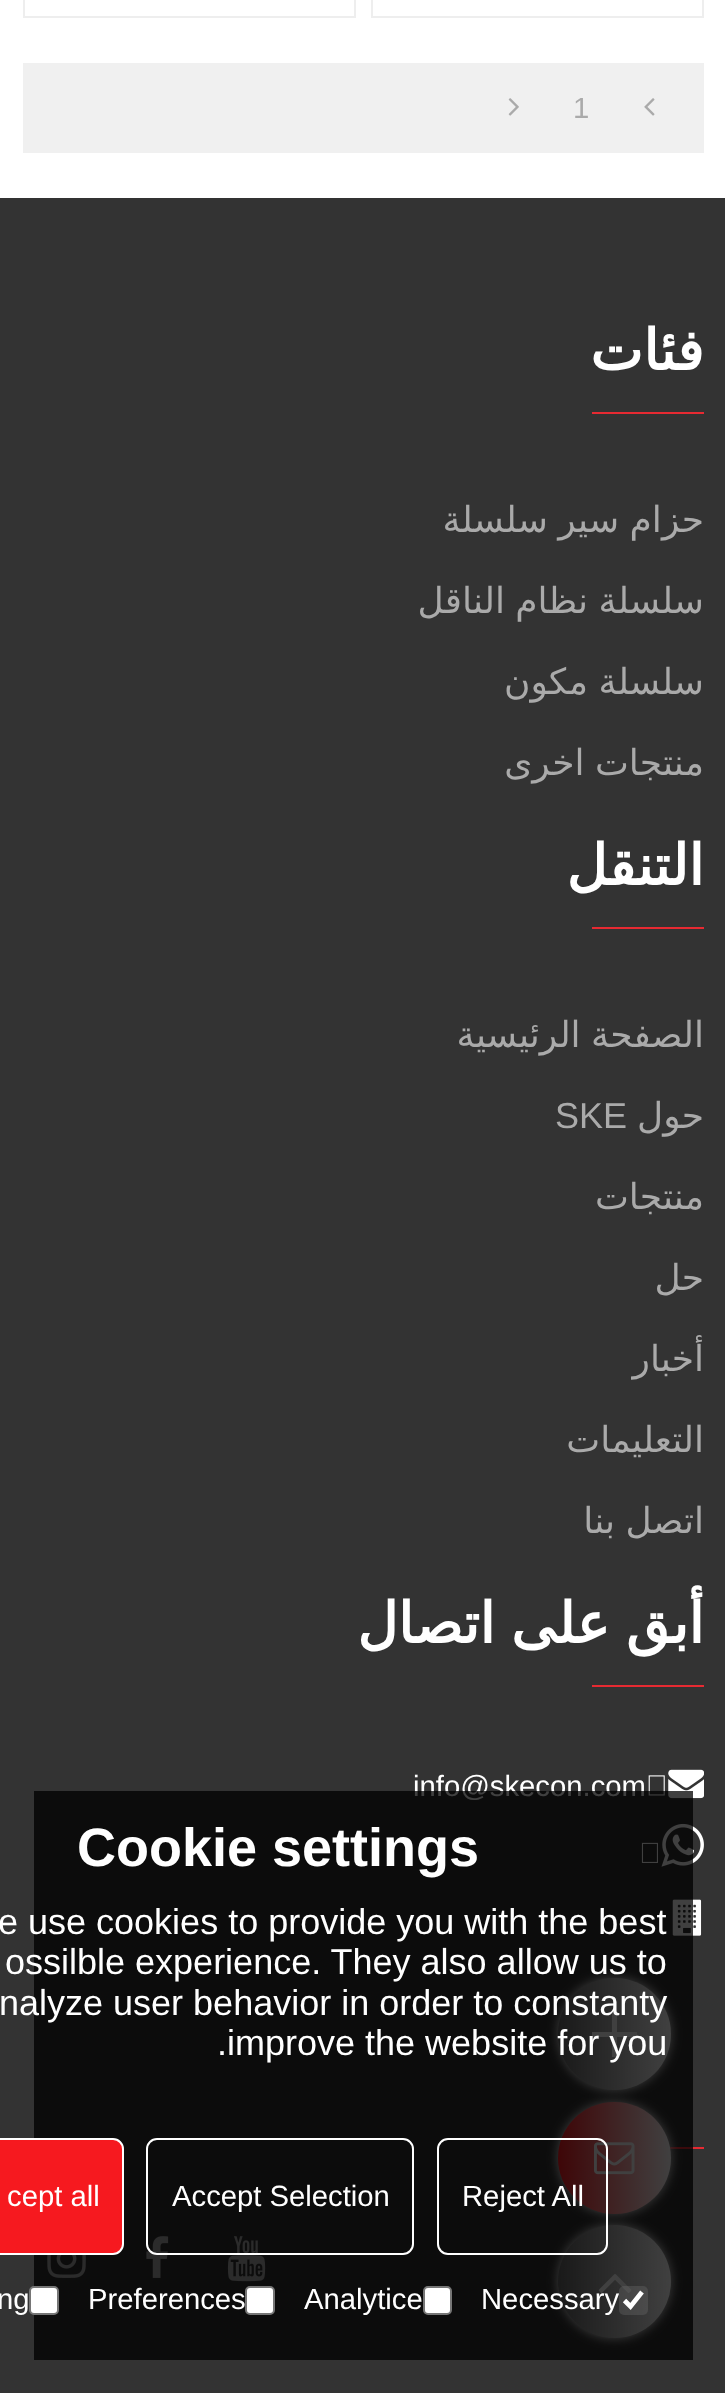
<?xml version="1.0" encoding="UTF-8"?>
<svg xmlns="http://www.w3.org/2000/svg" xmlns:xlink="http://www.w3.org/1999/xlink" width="725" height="2393">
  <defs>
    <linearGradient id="g1" gradientUnits="userSpaceOnUse" x1="558" y1="2034" x2="671" y2="2034"><stop offset="0" stop-color="#666666" /><stop offset="1" stop-color="#ffffff" /></linearGradient>
    <linearGradient id="g2" gradientUnits="userSpaceOnUse" x1="558" y1="2158" x2="671" y2="2158"><stop offset="0" stop-color="#f6191f" /><stop offset="1" stop-color="#ffffff" /></linearGradient>
    <linearGradient id="g3" gradientUnits="userSpaceOnUse" x1="558" y1="2282" x2="671" y2="2282"><stop offset="0" stop-color="#666666" /><stop offset="1" stop-color="#ffffff" /></linearGradient>
    <clipPath id="clip1"><rect x="23" y="479" width="681" height="81" /></clipPath>
    <clipPath id="clip2"><rect x="23" y="560" width="681" height="81" /></clipPath>
    <clipPath id="clip3"><rect x="358" y="1562" width="346" height="126" /></clipPath>
  </defs>
  <rect width="100%" height="100%" fill="#ffffff" />
  <rect x="24" y="-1" width="331" height="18" fill="none" stroke="#eeeeee" stroke-width="2" />
  <rect x="372" y="-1" width="331" height="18" fill="none" stroke="#eeeeee" stroke-width="2" />
  <rect x="23" y="63" width="681" height="90" fill="#f0f0f0" />
  <image x="508" y="98" width="11" height="18" xlink:href="image1.png" />
  <image x="644" y="98" width="11" height="18" xlink:href="image2.png" />
  <rect y="198" width="725" height="2195" fill="#333333" />
  <rect x="592" y="412" width="112" height="2" fill="#e72a32" />
  <rect x="592" y="927" width="112" height="2" fill="#e72a32" />
  <rect x="592" y="1685" width="112" height="2" fill="#e72a32" />
  <image x="648" y="1775" width="17" height="21" xlink:href="image3.png" />
  <image x="668" y="1769" width="36" height="30" xlink:href="image4.png" />
  <image x="641" y="1842" width="17" height="21" xlink:href="image5.png" />
  <image x="661" y="1823" width="43" height="44" xlink:href="image6.png" />
  <image x="672" y="1899" width="30" height="37" xlink:href="image7.png" />
  <rect x="669" y="2147" width="35" height="2" fill="#e72a32" />
  <image x="47" y="2255" width="39" height="23" xlink:href="image8.png" />
  <image x="146" y="2236" width="23" height="42" xlink:href="image9.png" />
  <image x="227" y="2236" width="39" height="46" xlink:href="image10.png" />
  <rect x="558" y="1978" width="113" height="112" rx="56" fill="#eeeeee" filter="blur(5.5px)" />
  <rect x="558" y="1978" width="113" height="112" rx="56" fill="url(#g1)" />
  <rect x="592" y="2032" width="45" height="5" fill="#ffffff" />
  <rect x="612" y="2012" width="5" height="45" fill="#ffffff" />
  <rect x="558" y="2102" width="113" height="112" rx="56" fill="#eeeeee" filter="blur(5.5px)" />
  <rect x="558" y="2102" width="113" height="112" rx="56" fill="url(#g2)" />
  <image x="594" y="2142" width="41" height="33" xlink:href="image11.png" />
  <rect x="558" y="2225" width="113" height="113" rx="56.5" fill="#eeeeee" filter="blur(5.5px)" />
  <circle cx="614.5" cy="2281.5" r="56.5" fill="url(#g3)" />
  <image x="598" y="2274" width="34" height="19" xlink:href="image12.png" />
  <text x="573" y="118" style="font-family: Liberation Sans; font-size: 29.25px; fill: #aaaaaa">1</text>
  <text x="704" y="370" style="font-family: DejaVu Sans; font-size: 56.25px; font-weight: bold; direction: rtl; fill: #ffffff">فئات</text>
  <g clip-path="url(#clip1)">
    <text x="704" y="532" word-spacing="-1" style="font-family: DejaVu Sans; font-size: 36px; direction: rtl; fill: #aaaaaa">حزام سير سلسلة</text>
  </g>
  <g clip-path="url(#clip2)">
    <text x="704" y="613" word-spacing="-1" style="font-family: DejaVu Sans; font-size: 36px; direction: rtl; fill: #aaaaaa">سلسلة نظام الناقل</text>
  </g>
  <text x="704" y="694" word-spacing="-1" style="font-family: DejaVu Sans; font-size: 36px; direction: rtl; fill: #aaaaaa">سلسلة مكون</text>
  <text x="704" y="775" word-spacing="-1" style="font-family: DejaVu Sans; font-size: 36px; direction: rtl; fill: #aaaaaa">منتجات اخرى</text>
  <text x="704" y="885" style="font-family: DejaVu Sans; font-size: 56.25px; font-weight: bold; direction: rtl; fill: #ffffff">التنقل</text>
  <text x="704" y="1047" word-spacing="-1" style="font-family: DejaVu Sans; font-size: 36px; direction: rtl; fill: #aaaaaa">الصفحة الرئيسية</text>
  <text x="555" y="1128" style="font-family: Liberation Sans; font-size: 36px; fill: #aaaaaa">SKE</text>
  <text x="704" y="1128" style="font-family: DejaVu Sans; font-size: 36px; direction: rtl; fill: #aaaaaa">حول</text>
  <text x="704" y="1209" style="font-family: DejaVu Sans; font-size: 36px; direction: rtl; fill: #aaaaaa">منتجات</text>
  <text x="704" y="1290" style="font-family: DejaVu Sans; font-size: 36px; direction: rtl; fill: #aaaaaa">حل</text>
  <text x="704" y="1371" style="font-family: DejaVu Sans; font-size: 36px; direction: rtl; fill: #aaaaaa">أخبار</text>
  <text x="704" y="1452" style="font-family: DejaVu Sans; font-size: 36px; direction: rtl; fill: #aaaaaa">التعليمات</text>
  <text x="704" y="1533" word-spacing="-1" style="font-family: DejaVu Sans; font-size: 36px; direction: rtl; fill: #aaaaaa">اتصل بنا</text>
  <g clip-path="url(#clip3)">
    <text x="704" y="1643" word-spacing="-2" style="font-family: DejaVu Sans; font-size: 56.25px; font-weight: bold; direction: rtl; fill: #ffffff">أبق على اتصال</text>
  </g>
  <text x="413" y="1796" style="font-family: Liberation Sans; font-size: 29.25px; fill: #ffffff">info@skecon.com</text>
  <rect x="34" y="1791" width="659" height="569" fill="#000000" fill-opacity="0.75" />
  <text x="77" y="1866" style="font-family: Liberation Sans; font-size: 54px; font-weight: bold; fill: #ffffff">Cookie settings</text>
  <text x="-2" y="1934" style="font-family: Liberation Sans; font-size: 36px; fill: #ffffff">e use cookies to provide you with the best</text>
  <text x="5" y="1974" style="font-family: Liberation Sans; font-size: 36px; fill: #ffffff">ossilble experience. They also allow us to</text>
  <text x="-1" y="2015" style="font-family: Liberation Sans; font-size: 36px; fill: #ffffff">nalyze user behavior in order to constanty</text>
  <text x="217" y="2055" style="font-family: Liberation Sans; font-size: 36px; fill: #ffffff">.improve the website for you</text>
  <rect x="-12" y="2139" width="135" height="115" rx="10" fill="#f6191f" stroke="#ffffff" stroke-width="2" />
  <text x="7" y="2206" style="font-family: Liberation Sans; font-size: 29.25px; fill: #ffffff">cept all</text>
  <rect x="147" y="2139" width="266" height="115" rx="10" fill="none" stroke="#ffffff" stroke-width="2" />
  <text x="172" y="2206" style="font-family: Liberation Sans; font-size: 29.25px; fill: #ffffff">Accept Selection</text>
  <rect x="438" y="2139" width="169" height="115" rx="10" fill="none" stroke="#ffffff" stroke-width="2" />
  <text x="462" y="2206" style="font-family: Liberation Sans; font-size: 29.25px; fill: #ffffff">Reject All</text>
  <text x="-3" y="2309" style="font-family: Liberation Sans; font-size: 29.25px; fill: #ffffff">ng</text>
  <rect x="30" y="2287" width="28" height="27" rx="4" fill="#ffffff" stroke="#767676" stroke-width="2" />
  <text x="88" y="2309" style="font-family: Liberation Sans; font-size: 29.25px; fill: #ffffff">Preferences</text>
  <rect x="246" y="2287" width="28" height="27" rx="4" fill="#ffffff" stroke="#767676" stroke-width="2" />
  <text x="304" y="2309" style="font-family: Liberation Sans; font-size: 29.25px; fill: #ffffff">Analytice</text>
  <rect x="424" y="2287" width="27" height="27" rx="4" fill="#ffffff" stroke="#767676" stroke-width="2" />
  <rect x="619" y="2286" width="29" height="29" rx="5" fill="#767676" fill-opacity="0.3" />
  <text x="481" y="2309" style="font-family: Liberation Sans; font-size: 29.25px; fill: #ffffff">Necessary</text>
  <path d="M 624.5 2300.5 l 6 6 l 11.5 -14.5" fill="none" stroke="#ffffff" stroke-width="4.7" />
</svg>
